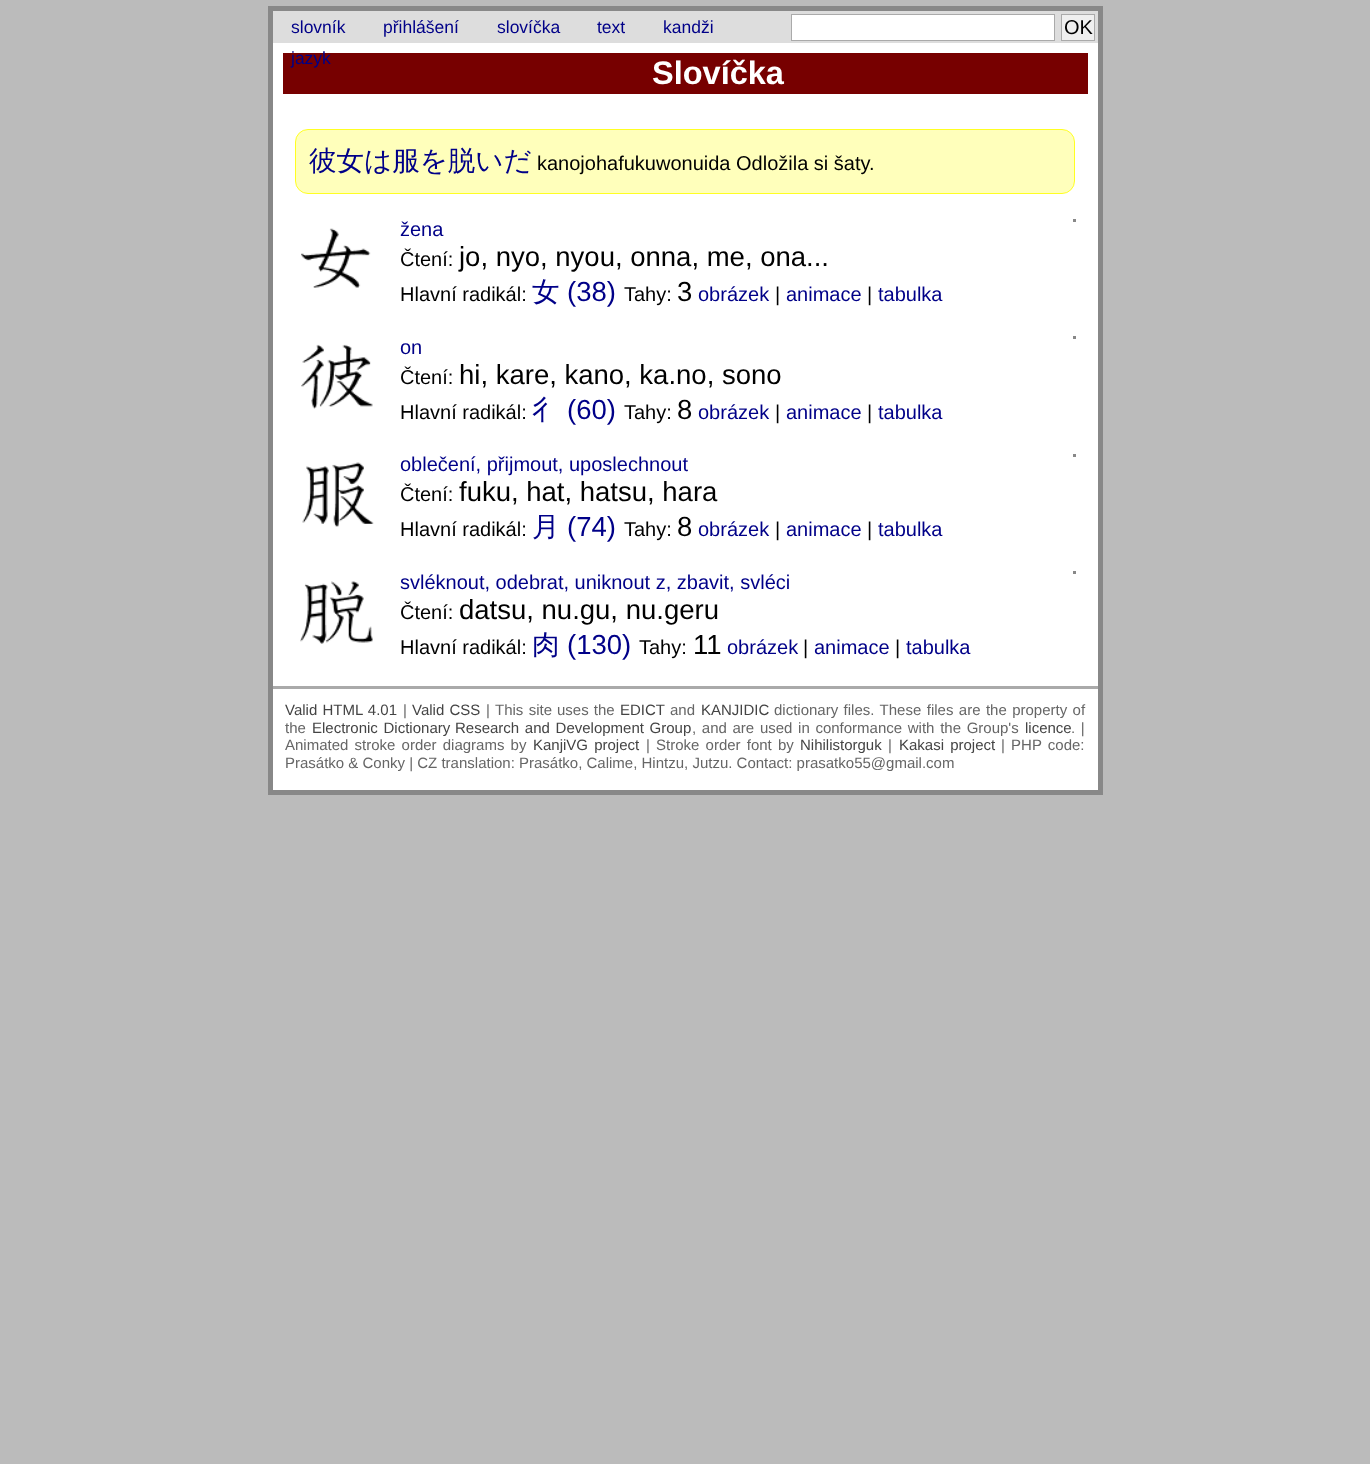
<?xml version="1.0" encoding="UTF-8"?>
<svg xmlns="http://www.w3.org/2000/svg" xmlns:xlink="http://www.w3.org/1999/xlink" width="1370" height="1464">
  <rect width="100%" height="100%" fill="#bbbbbb" />
  <rect x="273" y="43" width="825" height="747" fill="#ffffff" />
  <rect x="270.5" y="8.5" width="830" height="784" fill="none" stroke="#888888" stroke-width="5" />
  <rect x="273" y="11" width="825" height="32" fill="#dddddd" />
  <rect x="791.5" y="14.5" width="263" height="26" fill="#ffffff" stroke="#aaaaaa" />
  <rect x="1061.5" y="14.5" width="33" height="26" fill="#efefef" stroke="#aaaaaa" />
  <rect x="283" y="53" width="805" height="41" fill="#770000" />
  <rect x="295.5" y="129.5" width="779" height="64" rx="12.5" fill="#ffffbb" stroke="#ffff22" />
  <rect x="1073" y="219" width="3" height="3" fill="#888888" />
  <image x="301" y="228" width="70" height="60" xlink:href="image1.png" />
  <rect x="1073" y="336" width="3" height="3" fill="#888888" />
  <image x="301" y="344" width="72" height="65" xlink:href="image2.png" />
  <rect x="1073" y="454" width="3" height="3" fill="#888888" />
  <image x="302" y="462" width="72" height="65" xlink:href="image3.png" />
  <rect x="1073" y="571" width="3" height="3" fill="#888888" />
  <image x="300" y="581" width="73" height="63" xlink:href="image4.png" />
  <rect x="273" y="686" width="825" height="3" fill="#aaaaaa" />
  <text x="291" y="33" style="font-family: Liberation Sans; font-size: 17.5px; fill: #000088">slovník</text>
  <text x="383" y="33" style="font-family: Liberation Sans; font-size: 17.5px; fill: #000088">přihlášení</text>
  <text x="497" y="33" style="font-family: Liberation Sans; font-size: 17.5px; fill: #000088">slovíčka</text>
  <text x="597" y="33" style="font-family: Liberation Sans; font-size: 17.5px; fill: #000088">text</text>
  <text x="663" y="33" style="font-family: Liberation Sans; font-size: 17.5px; fill: #000088">kandži</text>
  <text x="291" y="64" style="font-family: Liberation Sans; font-size: 17.5px; fill: #000088">jazyk</text>
  <text x="1064" y="34" style="font-family: Liberation Sans; font-size: 20px; fill: #000000">OK</text>
  <text x="652" y="84" style="font-family: Liberation Sans; font-size: 32.5px; font-weight: bold; fill: #ffffff">Slovíčka</text>
  <text x="309" y="170" style="font-family: WenQuanYi Zen Hei; font-size: 27.5px; font-weight: 500; fill: #000088">彼女は服を脱いだ</text>
  <text x="537" y="170" style="font-family: Liberation Sans; font-size: 20px; fill: #000000">kanojohafukuwonuida Odložila si šaty.</text>
  <text x="400" y="236" style="font-family: Liberation Sans; font-size: 20px; fill: #000088">žena</text>
  <text x="459" y="266" style="font-family: Liberation Sans; font-size: 27.5px; fill: #000000">jo, nyo, nyou, onna, me, ona...</text>
  <text x="400" y="266" style="font-family: Liberation Sans; font-size: 20px; fill: #000000">Čtení:</text>
  <text x="400" y="301" style="font-family: Liberation Sans; font-size: 20px; fill: #000000">Hlavní radikál:</text>
  <text x="532" y="301" style="font-family: WenQuanYi Zen Hei; font-size: 27.5px; font-weight: 500; fill: #000088">女</text>
  <text x="567" y="301" style="font-family: Liberation Sans; font-size: 27.5px; fill: #000088">(38)</text>
  <text x="624" y="301" style="font-family: Liberation Sans; font-size: 20px; fill: #000000">Tahy:</text>
  <text x="677" y="301" style="font-family: Liberation Sans; font-size: 27.5px; fill: #000000">3</text>
  <text x="698" y="301" style="font-family: Liberation Sans; font-size: 20px; fill: #000088">obrázek</text>
  <text x="775" y="301" style="font-family: Liberation Sans; font-size: 20px; fill: #000000">|</text>
  <text x="786" y="301" style="font-family: Liberation Sans; font-size: 20px; fill: #000088">animace</text>
  <text x="867" y="301" style="font-family: Liberation Sans; font-size: 20px; fill: #000000">|</text>
  <text x="878" y="301" style="font-family: Liberation Sans; font-size: 20px; fill: #000088">tabulka</text>
  <text x="400" y="354" style="font-family: Liberation Sans; font-size: 20px; fill: #000088">on</text>
  <text x="459" y="384" style="font-family: Liberation Sans; font-size: 27.5px; fill: #000000">hi, kare, kano, ka.no, sono</text>
  <text x="400" y="384" style="font-family: Liberation Sans; font-size: 20px; fill: #000000">Čtení:</text>
  <text x="400" y="419" style="font-family: Liberation Sans; font-size: 20px; fill: #000000">Hlavní radikál:</text>
  <text x="532" y="419" style="font-family: WenQuanYi Zen Hei; font-size: 27.5px; font-weight: 500; fill: #000088">彳</text>
  <text x="567" y="419" style="font-family: Liberation Sans; font-size: 27.5px; fill: #000088">(60)</text>
  <text x="624" y="419" style="font-family: Liberation Sans; font-size: 20px; fill: #000000">Tahy:</text>
  <text x="677" y="419" style="font-family: Liberation Sans; font-size: 27.5px; fill: #000000">8</text>
  <text x="698" y="419" style="font-family: Liberation Sans; font-size: 20px; fill: #000088">obrázek</text>
  <text x="775" y="419" style="font-family: Liberation Sans; font-size: 20px; fill: #000000">|</text>
  <text x="786" y="419" style="font-family: Liberation Sans; font-size: 20px; fill: #000088">animace</text>
  <text x="867" y="419" style="font-family: Liberation Sans; font-size: 20px; fill: #000000">|</text>
  <text x="878" y="419" style="font-family: Liberation Sans; font-size: 20px; fill: #000088">tabulka</text>
  <text x="400" y="471" style="font-family: Liberation Sans; font-size: 20px; fill: #000088">oblečení, přijmout, uposlechnout</text>
  <text x="400" y="501" style="font-family: Liberation Sans; font-size: 20px; fill: #000000">Čtení:</text>
  <text x="459" y="501" style="font-family: Liberation Sans; font-size: 27.5px; fill: #000000">fuku, hat, hatsu, hara</text>
  <text x="400" y="536" style="font-family: Liberation Sans; font-size: 20px; fill: #000000">Hlavní radikál:</text>
  <text x="532" y="536" style="font-family: WenQuanYi Zen Hei; font-size: 27.5px; font-weight: 500; fill: #000088">月</text>
  <text x="567" y="536" style="font-family: Liberation Sans; font-size: 27.5px; fill: #000088">(74)</text>
  <text x="624" y="536" style="font-family: Liberation Sans; font-size: 20px; fill: #000000">Tahy:</text>
  <text x="677" y="536" style="font-family: Liberation Sans; font-size: 27.5px; fill: #000000">8</text>
  <text x="698" y="536" style="font-family: Liberation Sans; font-size: 20px; fill: #000088">obrázek</text>
  <text x="775" y="536" style="font-family: Liberation Sans; font-size: 20px; fill: #000000">|</text>
  <text x="786" y="536" style="font-family: Liberation Sans; font-size: 20px; fill: #000088">animace</text>
  <text x="867" y="536" style="font-family: Liberation Sans; font-size: 20px; fill: #000000">|</text>
  <text x="878" y="536" style="font-family: Liberation Sans; font-size: 20px; fill: #000088">tabulka</text>
  <text x="400" y="589" style="font-family: Liberation Sans; font-size: 20px; fill: #000088">svléknout, odebrat, uniknout z, zbavit, svléci</text>
  <text x="400" y="619" style="font-family: Liberation Sans; font-size: 20px; fill: #000000">Čtení:</text>
  <text x="459" y="619" style="font-family: Liberation Sans; font-size: 27.5px; fill: #000000">datsu, nu.gu, nu.geru</text>
  <text x="400" y="654" style="font-family: Liberation Sans; font-size: 20px; fill: #000000">Hlavní radikál:</text>
  <text x="532" y="654" style="font-family: WenQuanYi Zen Hei; font-size: 27.5px; font-weight: 500; fill: #000088">肉</text>
  <text x="567" y="654" style="font-family: Liberation Sans; font-size: 27.5px; fill: #000088">(130)</text>
  <text x="639" y="654" style="font-family: Liberation Sans; font-size: 20px; fill: #000000">Tahy:</text>
  <text x="693" y="654" style="font-family: Liberation Sans; font-size: 27.5px; fill: #000000">11</text>
  <text x="727" y="654" style="font-family: Liberation Sans; font-size: 20px; fill: #000088">obrázek</text>
  <text x="803" y="654" style="font-family: Liberation Sans; font-size: 20px; fill: #000000">|</text>
  <text x="814" y="654" style="font-family: Liberation Sans; font-size: 20px; fill: #000088">animace</text>
  <text x="895" y="654" style="font-family: Liberation Sans; font-size: 20px; fill: #000000">|</text>
  <text x="906" y="654" style="font-family: Liberation Sans; font-size: 20px; fill: #000088">tabulka</text>
  <text x="285" y="715" word-spacing="1" style="font-family: Liberation Sans; font-size: 15px; fill: #444444">Valid HTML 4.01</text>
  <text x="403" y="715" style="font-family: Liberation Sans; font-size: 15px; fill: #666666">|</text>
  <text x="412" y="715" word-spacing="1" style="font-family: Liberation Sans; font-size: 15px; fill: #444444">Valid CSS</text>
  <text x="486" y="715" style="font-family: Liberation Sans; font-size: 15px; fill: #666666">|</text>
  <text x="495" y="715" word-spacing="1.25" style="font-family: Liberation Sans; font-size: 15px; fill: #666666">This site</text>
  <text x="557" y="715" word-spacing="1" style="font-family: Liberation Sans; font-size: 15px; fill: #666666">uses the</text>
  <text x="620" y="715" style="font-family: Liberation Sans; font-size: 15px; fill: #444444">EDICT</text>
  <text x="670" y="715" style="font-family: Liberation Sans; font-size: 15px; fill: #666666">and</text>
  <text x="701" y="715" style="font-family: Liberation Sans; font-size: 15px; fill: #444444">KANJIDIC</text>
  <text x="774" y="715" word-spacing="1.25" style="font-family: Liberation Sans; font-size: 15px; fill: #666666">dictionary files. These files are the property of</text>
  <text x="285" y="733" style="font-family: Liberation Sans; font-size: 15px; fill: #666666">the</text>
  <text x="312" y="733" word-spacing="1.5" style="font-family: Liberation Sans; font-size: 15px; fill: #444444">Electronic Dictionary</text>
  <text x="455" y="733" word-spacing="1.5" style="font-family: Liberation Sans; font-size: 15px; fill: #444444">Research and Development Group</text>
  <text x="692" y="733" word-spacing="1.5" style="font-family: Liberation Sans; font-size: 15px; fill: #666666">, and are used in conformance with the Group's</text>
  <text x="1025" y="733" style="font-family: Liberation Sans; font-size: 15px; fill: #444444">licence</text>
  <text x="1071" y="733" word-spacing="1.5" style="font-family: Liberation Sans; font-size: 15px; fill: #666666">. |</text>
  <text x="285" y="750" word-spacing="2" style="font-family: Liberation Sans; font-size: 15px; fill: #666666">Animated stroke order diagrams by</text>
  <text x="533" y="750" word-spacing="2" style="font-family: Liberation Sans; font-size: 15px; fill: #444444">KanjiVG project</text>
  <text x="646" y="750" word-spacing="2" style="font-family: Liberation Sans; font-size: 15px; fill: #666666">| Stroke order font by</text>
  <text x="800" y="750" style="font-family: Liberation Sans; font-size: 15px; fill: #444444">Nihilistorguk</text>
  <text x="888" y="750" style="font-family: Liberation Sans; font-size: 15px; fill: #666666">|</text>
  <text x="899" y="750" word-spacing="2" style="font-family: Liberation Sans; font-size: 15px; fill: #444444">Kakasi project</text>
  <text x="1001" y="750" word-spacing="2" style="font-family: Liberation Sans; font-size: 15px; fill: #666666">| PHP code:</text>
  <text x="285" y="768" style="font-family: Liberation Sans; font-size: 15px; fill: #666666">Prasátko &amp; Conky | CZ translation: Prasátko, Calime, Hintzu, Jutzu. Contact: prasatko55@gmail.com</text>
</svg>
